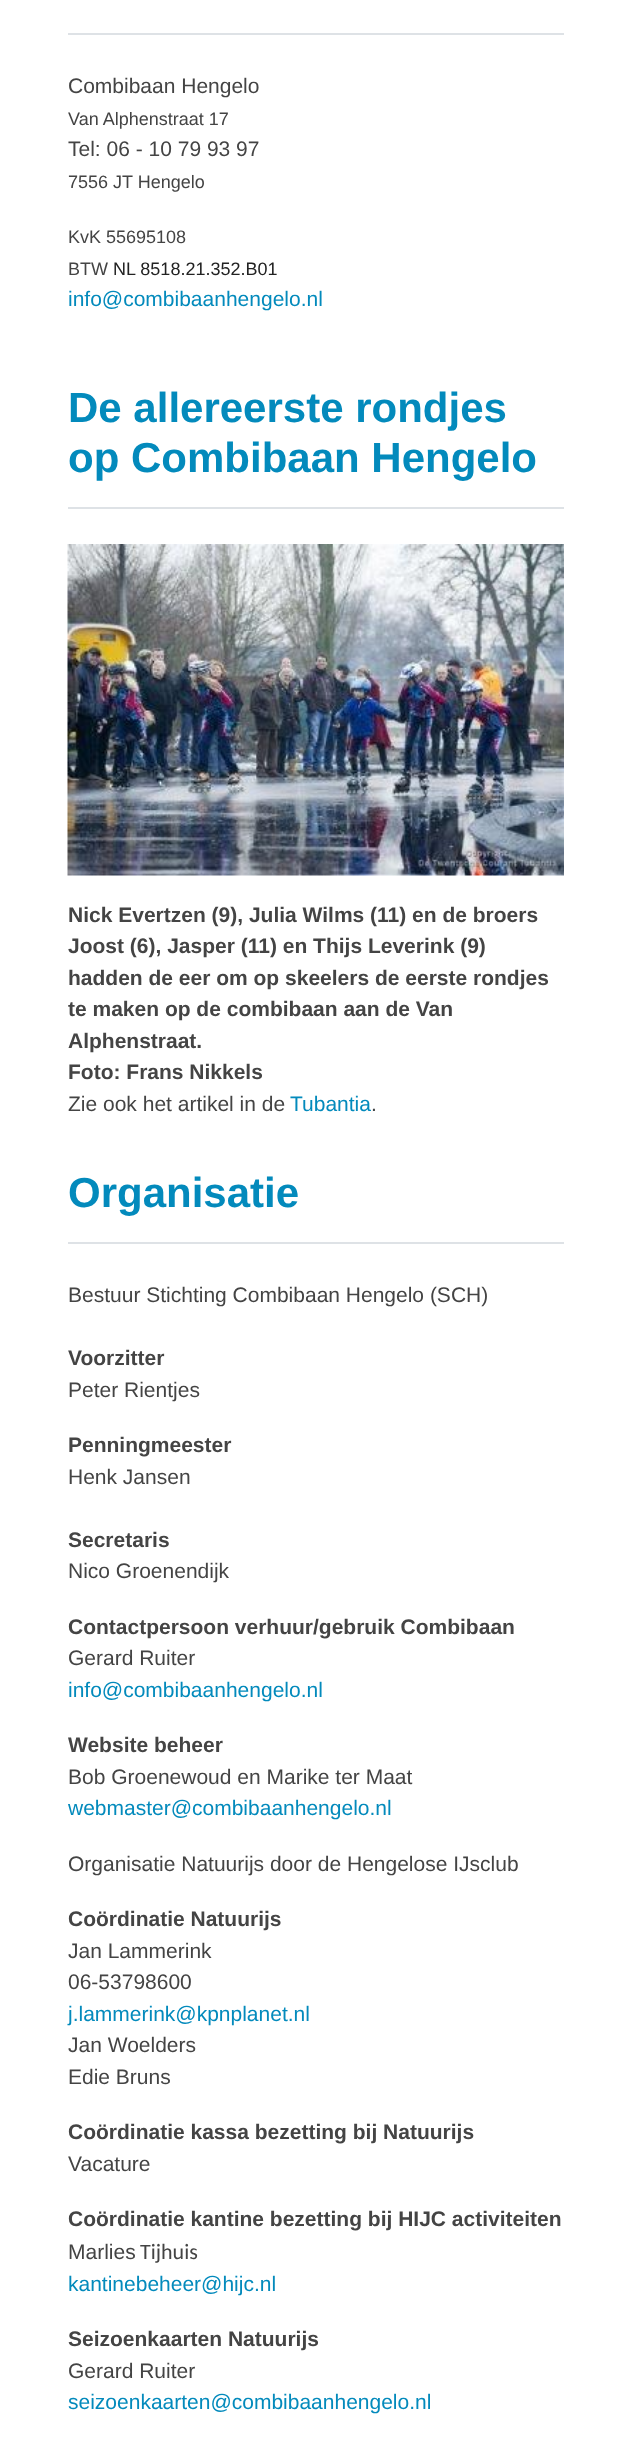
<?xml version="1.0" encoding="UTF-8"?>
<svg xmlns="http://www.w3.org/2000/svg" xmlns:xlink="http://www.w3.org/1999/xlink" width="631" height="2446">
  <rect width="100%" height="100%" fill="#ffffff" />
  <rect x="68" y="33" width="496" height="2" fill="#dee2e6" />
  <rect x="68" y="507" width="496" height="2" fill="#dee2e6" />
  <image x="67" y="544" width="497" height="332" xlink:href="image1.png" />
  <rect x="68" y="1242" width="496" height="2" fill="#dee2e6" />
  <text x="68" y="93" style="font-family: Liberation Sans; font-size: 21px; fill: #444444">Combibaan Hengelo</text>
  <text x="68" y="125" style="font-family: Liberation Sans; font-size: 18px; fill: #444444">Van Alphenstraat 17</text>
  <text x="68" y="156" style="font-family: Liberation Sans; font-size: 21px; fill: #444444">Tel: 06 - 10 79 93 97</text>
  <text x="68" y="188" style="font-family: Liberation Sans; font-size: 18px; fill: #444444">7556 JT Hengelo</text>
  <text x="68" y="243" style="font-family: Liberation Sans; font-size: 18px; fill: #444444">KvK 55695108</text>
  <text x="68" y="275" style="font-family: Liberation Sans; font-size: 18px; fill: #444444">BTW</text>
  <text x="113" y="275" style="font-family: Liberation Sans; font-size: 18px; fill: #222222">NL 8518.21.352.B01</text>
  <text x="68" y="306" style="font-family: Liberation Sans; font-size: 21px; fill: #038abc">info@combibaanhengelo.nl</text>
  <text x="68" y="422" style="font-family: Liberation Sans; font-size: 42px; font-weight: bold; fill: #038abc">De allereerste rondjes</text>
  <text x="68" y="472" style="font-family: Liberation Sans; font-size: 42px; font-weight: bold; fill: #038abc">op Combibaan Hengelo</text>
  <text x="68" y="922" style="font-family: Liberation Sans; font-size: 21px; font-weight: bold; fill: #444444">Nick Evertzen (9), Julia Wilms (11) en de broers</text>
  <text x="68" y="953" style="font-family: Liberation Sans; font-size: 21px; font-weight: bold; fill: #444444">Joost (6), Jasper (11) en Thijs Leverink (9)</text>
  <text x="68" y="985" style="font-family: Liberation Sans; font-size: 21px; font-weight: bold; fill: #444444">hadden de eer om op skeelers de eerste rondjes</text>
  <text x="68" y="1016" style="font-family: Liberation Sans; font-size: 21px; font-weight: bold; fill: #444444">te maken op de combibaan aan de Van</text>
  <text x="68" y="1048" style="font-family: Liberation Sans; font-size: 21px; font-weight: bold; fill: #444444">Alphenstraat.</text>
  <text x="68" y="1079" style="font-family: Liberation Sans; font-size: 21px; font-weight: bold; fill: #444444">Foto: Frans Nikkels</text>
  <text x="68" y="1111" style="font-family: Liberation Sans; font-size: 21px; fill: #444444">Zie ook het artikel in de</text>
  <text x="290" y="1111" style="font-family: Liberation Sans; font-size: 21px; fill: #038abc">Tubantia</text>
  <text x="371" y="1111" style="font-family: Liberation Sans; font-size: 21px; fill: #444444">.</text>
  <text x="68" y="1207" style="font-family: Liberation Sans; font-size: 42px; font-weight: bold; fill: #038abc">Organisatie</text>
  <text x="68" y="1302" style="font-family: Liberation Sans; font-size: 21px; fill: #444444">Bestuur Stichting Combibaan Hengelo (SCH)</text>
  <text x="68" y="1365" style="font-family: Liberation Sans; font-size: 21px; font-weight: bold; fill: #444444">Voorzitter</text>
  <text x="68" y="1397" style="font-family: Liberation Sans; font-size: 21px; fill: #444444">Peter Rientjes</text>
  <text x="68" y="1452" style="font-family: Liberation Sans; font-size: 21px; font-weight: bold; fill: #444444">Penningmeester</text>
  <text x="68" y="1484" style="font-family: Liberation Sans; font-size: 21px; fill: #444444">Henk Jansen</text>
  <text x="68" y="1547" style="font-family: Liberation Sans; font-size: 21px; font-weight: bold; fill: #444444">Secretaris</text>
  <text x="68" y="1578" style="font-family: Liberation Sans; font-size: 21px; fill: #444444">Nico Groenendijk</text>
  <text x="68" y="1634" style="font-family: Liberation Sans; font-size: 21px; font-weight: bold; fill: #444444">Contactpersoon verhuur/gebruik Combibaan</text>
  <text x="68" y="1665" style="font-family: Liberation Sans; font-size: 21px; fill: #444444">Gerard Ruiter</text>
  <text x="68" y="1697" style="font-family: Liberation Sans; font-size: 21px; fill: #038abc">info@combibaanhengelo.nl</text>
  <text x="68" y="1752" style="font-family: Liberation Sans; font-size: 21px; font-weight: bold; fill: #444444">Website beheer</text>
  <text x="68" y="1784" style="font-family: Liberation Sans; font-size: 21px; fill: #444444">Bob Groenewoud en Marike ter Maat</text>
  <text x="68" y="1815" style="font-family: Liberation Sans; font-size: 21px; fill: #038abc">webmaster@combibaanhengelo.nl</text>
  <text x="68" y="1871" style="font-family: Liberation Sans; font-size: 21px; fill: #444444">Organisatie Natuurijs door de Hengelose IJsclub</text>
  <text x="68" y="1926" style="font-family: Liberation Sans; font-size: 21px; font-weight: bold; fill: #444444">Coördinatie Natuurijs</text>
  <text x="68" y="1958" style="font-family: Liberation Sans; font-size: 21px; fill: #444444">Jan Lammerink</text>
  <text x="68" y="1989" style="font-family: Liberation Sans; font-size: 21px; fill: #444444">06-53798600</text>
  <text x="68" y="2021" style="font-family: Liberation Sans; font-size: 21px; fill: #038abc">j.lammerink@kpnplanet.nl</text>
  <text x="68" y="2052" style="font-family: Liberation Sans; font-size: 21px; fill: #444444">Jan Woelders</text>
  <text x="68" y="2084" style="font-family: Liberation Sans; font-size: 21px; fill: #444444">Edie Bruns</text>
  <text x="68" y="2139" style="font-family: Liberation Sans; font-size: 21px; font-weight: bold; fill: #444444">Coördinatie kassa bezetting bij Natuurijs</text>
  <text x="68" y="2171" style="font-family: Liberation Sans; font-size: 21px; fill: #444444">Vacature</text>
  <text x="68" y="2226" style="font-family: Liberation Sans; font-size: 21px; font-weight: bold; fill: #444444">Coördinatie kantine bezetting bij HIJC activiteiten</text>
  <text x="68" y="2259" style="font-family: Liberation Sans; font-size: 21px; fill: #444444">Marlies</text>
  <text x="140" y="2259" style="font-family: Carlito; font-size: 22px; fill: #444444">Tijhuis</text>
  <text x="68" y="2291" style="font-family: Liberation Sans; font-size: 21px; fill: #038abc">kantinebeheer@hijc.nl</text>
  <text x="68" y="2346" style="font-family: Liberation Sans; font-size: 21px; font-weight: bold; fill: #444444">Seizoenkaarten Natuurijs</text>
  <text x="68" y="2378" style="font-family: Liberation Sans; font-size: 21px; fill: #444444">Gerard Ruiter</text>
  <text x="68" y="2409" style="font-family: Liberation Sans; font-size: 21px; fill: #038abc">seizoenkaarten@combibaanhengelo.nl</text>
</svg>
